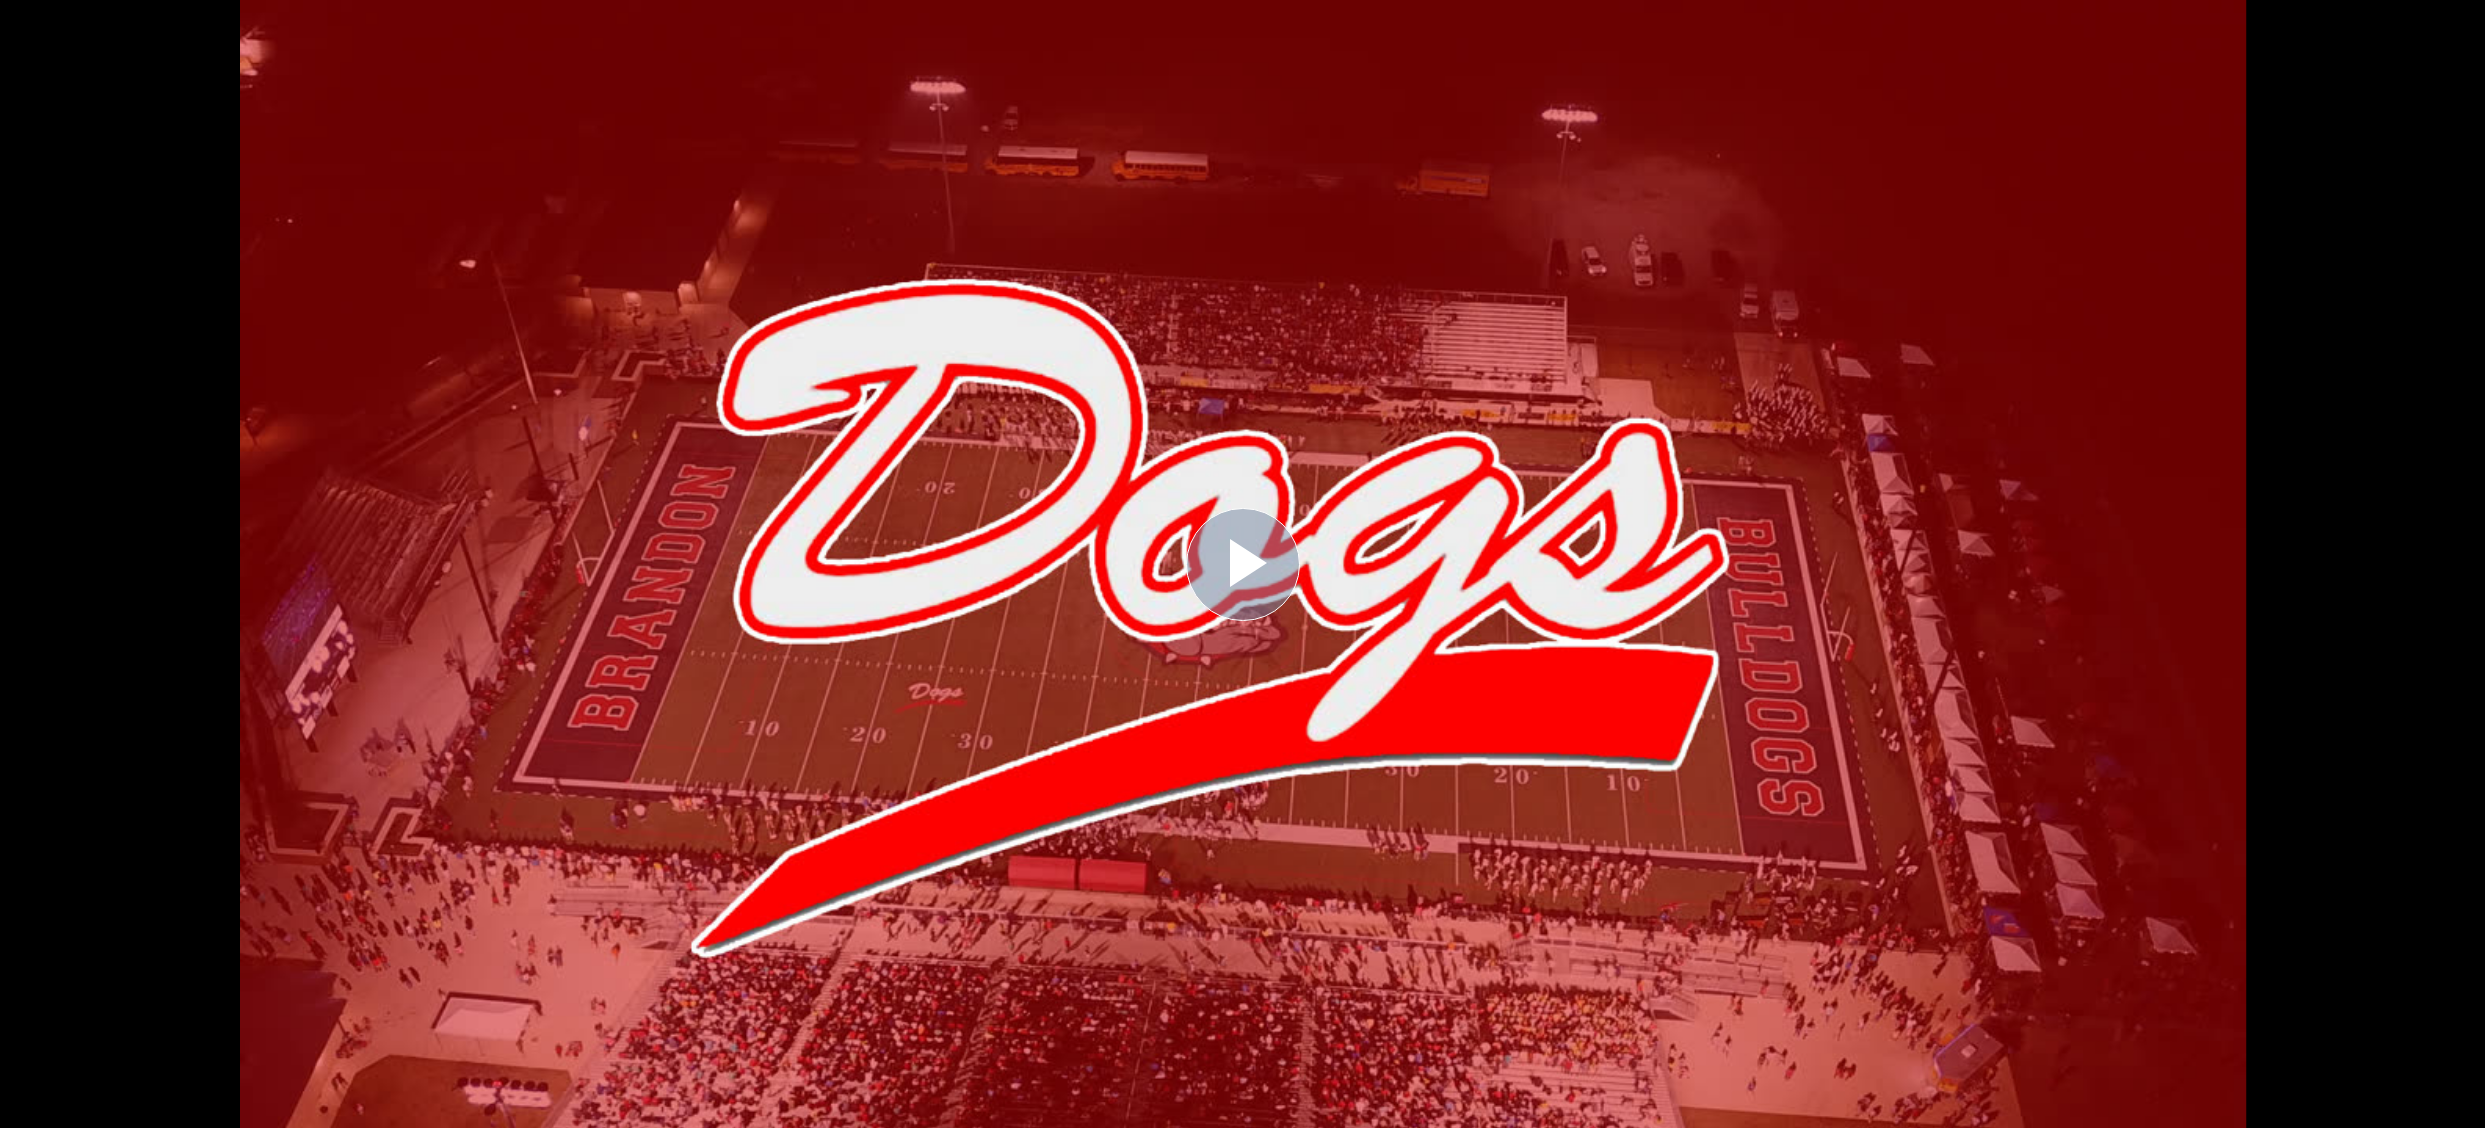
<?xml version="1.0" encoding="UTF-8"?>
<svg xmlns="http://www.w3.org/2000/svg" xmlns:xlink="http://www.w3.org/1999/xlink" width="2485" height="1128">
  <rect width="100%" height="100%" fill="#000000" />
  <image x="240" y="0" width="2007" height="1128" xlink:href="image1.png" />
  <rect x="1186.5" y="508.5" width="113" height="112" rx="56" fill="#73859f" fill-opacity="0.5" stroke="#ffffff" />
  <path d="M 1230 539 v 48 l 37 -24 z" fill="#ffffff" />
</svg>
